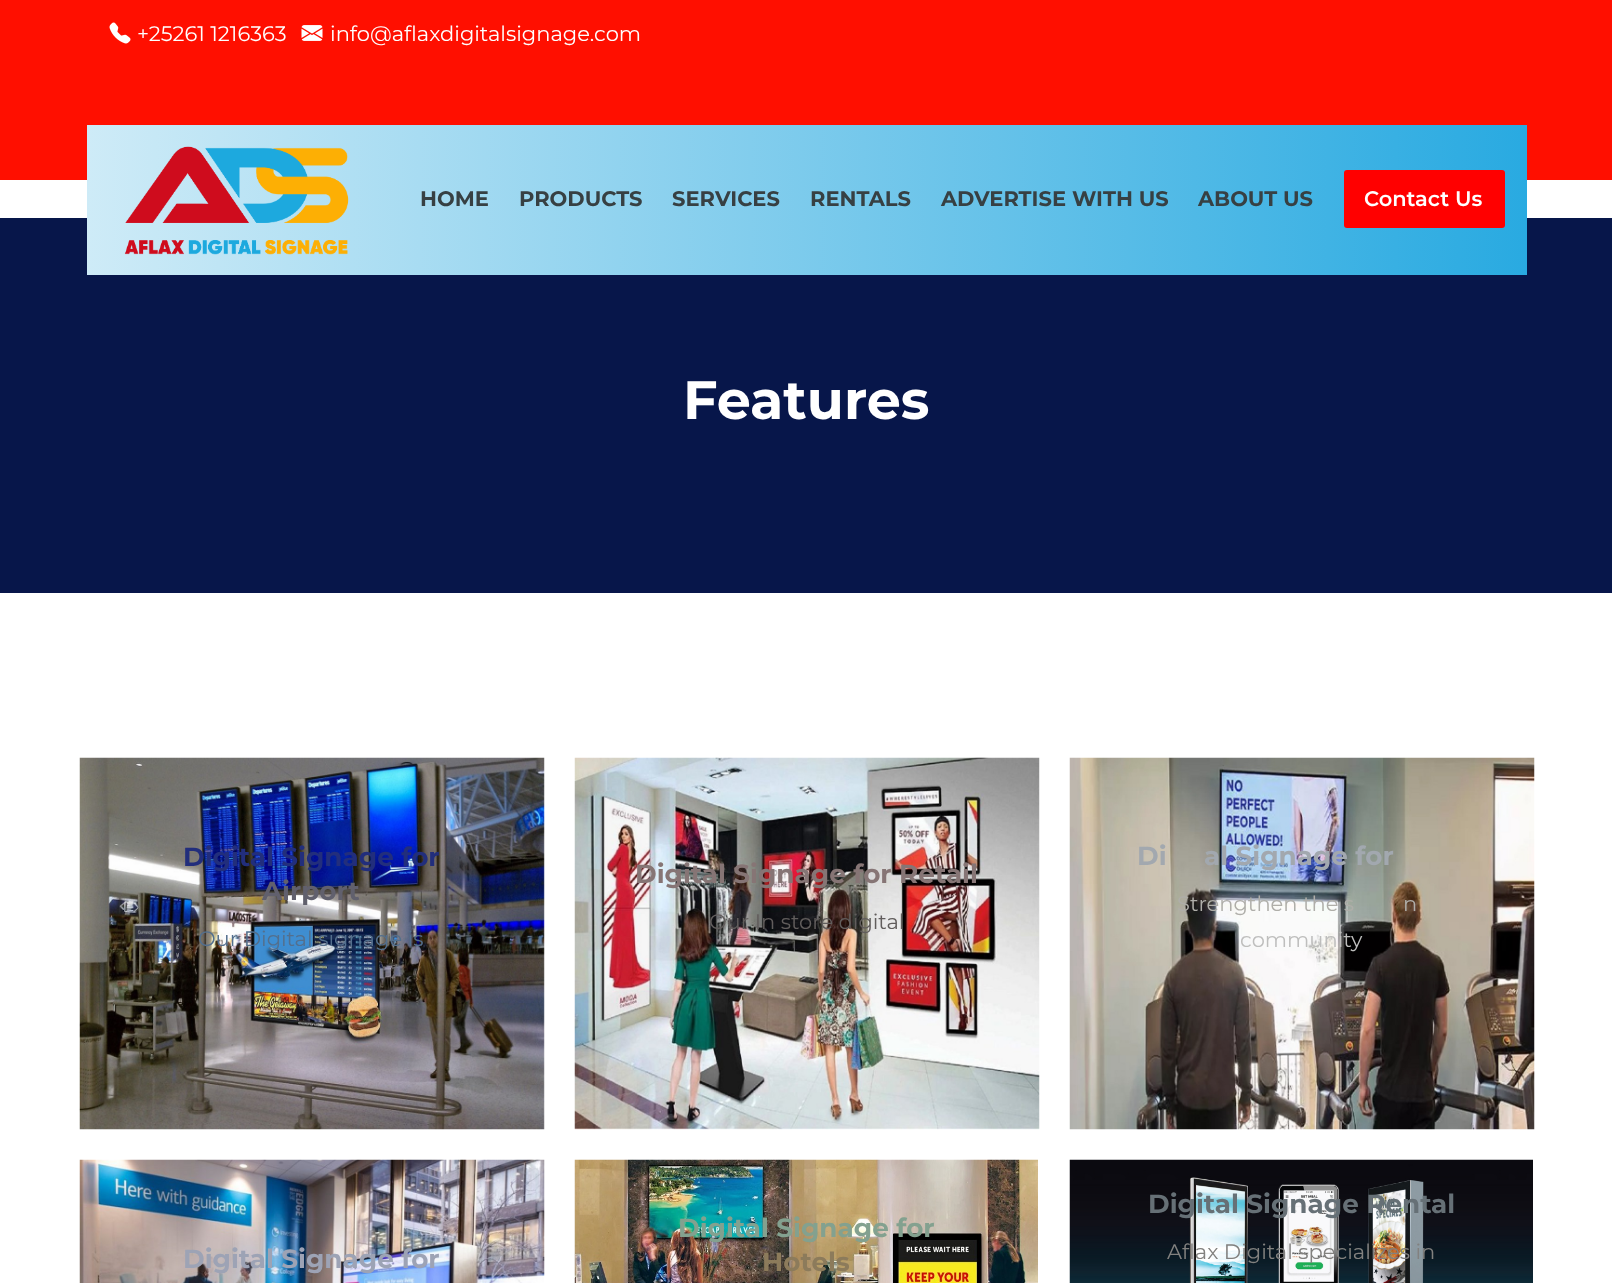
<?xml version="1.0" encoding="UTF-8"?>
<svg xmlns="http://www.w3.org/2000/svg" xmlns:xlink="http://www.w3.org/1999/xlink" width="1612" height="1283">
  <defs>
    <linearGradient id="g1" gradientUnits="userSpaceOnUse" x1="87" y1="200" x2="1527" y2="199"><stop offset="0" stop-color="#ceebf7" /><stop offset="1" stop-color="#29aae1" /></linearGradient>
  </defs>
  <rect width="100%" height="100%" fill="#ffffff" />
  <rect width="1612" height="180" fill="#ff0f00" />
  <image x="109" y="22" width="22" height="22" xlink:href="image1.png" />
  <image x="301" y="25" width="22" height="16" xlink:href="image2.png" />
  <rect y="218" width="1612" height="375" fill="#07164a" />
  <rect x="87" y="125" width="1440" height="150" fill="url(#g1)" />
  <image x="124" y="146" width="225" height="109" xlink:href="image3.png" />
  <rect x="1344" y="170" width="161" height="58" rx="3" fill="#ff0000" />
  <image x="79" y="757" width="466" height="373" xlink:href="image4.png" />
  <image x="574" y="757" width="466" height="373" xlink:href="image5.png" />
  <image x="1069" y="757" width="466" height="373" xlink:href="image6.png" />
  <image x="79" y="1159" width="466" height="124" xlink:href="image7.png" />
  <image x="574" y="1159" width="464" height="124" xlink:href="image8.png" />
  <image x="1069" y="1159" width="464" height="124" xlink:href="image9.png" />
  <text x="137" y="41" style="font-family: Montserrat; font-size: 21px; fill: #ffffff">+25261 1216363</text>
  <text x="330" y="41" style="font-family: Montserrat; font-size: 21px; fill: #ffffff">info@aflaxdigitalsignage.com</text>
  <text x="420" y="206" style="font-family: Montserrat; font-size: 21px; font-weight: bold; fill: #374043">HOME</text>
  <text x="519" y="206" style="font-family: Montserrat; font-size: 21px; font-weight: bold; fill: #374043">PRODUCTS</text>
  <text x="672" y="206" style="font-family: Montserrat; font-size: 21px; font-weight: bold; fill: #374043">SERVICES</text>
  <text x="810" y="206" style="font-family: Montserrat; font-size: 21px; font-weight: bold; fill: #374043">RENTALS</text>
  <text x="941" y="206" style="font-family: Montserrat; font-size: 21px; font-weight: bold; fill: #374043">ADVERTISE WITH US</text>
  <text x="1198" y="206" style="font-family: Montserrat; font-size: 21px; font-weight: bold; fill: #374043">ABOUT US</text>
  <text x="1364" y="206" style="font-family: Montserrat; font-size: 21px; font-weight: 600; fill: #ffffff">Contact Us</text>
  <text x="683" y="419" style="font-family: Montserrat; font-size: 54px; font-weight: bold; fill: #ffffff">Features</text>
  <text x="183" y="866" style="font-family: Montserrat; font-size: 26.25px; font-weight: bold; fill: #222e7c">Digital Signage for</text>
  <text x="262" y="900" style="font-family: Montserrat; font-size: 26.25px; font-weight: bold; fill: #61606d">Airport</text>
  <text x="198" y="946" style="font-family: Montserrat; font-size: 21px; fill: #536f8d">Our Digital signage is</text>
  <text x="635" y="883" style="font-family: Montserrat; font-size: 26.25px; font-weight: bold; fill: #867575">Digital Signage for Retail</text>
  <text x="709" y="929" style="font-family: Montserrat; font-size: 21px; fill: #615d5c">Our In store digital</text>
  <text x="1137" y="865" style="font-family: Montserrat; font-size: 26.25px; font-weight: bold; fill: #a2a8af">Di</text>
  <text x="1204" y="865" style="font-family: Montserrat; font-size: 26.25px; font-weight: bold; fill: #a2a8af">al Signage for</text>
  <text x="1177" y="911" style="font-family: Montserrat; font-size: 21px; fill: #afaea9">Strengthen the s</text>
  <text x="1403" y="911" style="font-family: Montserrat; font-size: 21px; fill: #afaea9">n</text>
  <text x="1240" y="947" style="font-family: Montserrat; font-size: 21px; fill: #bebebd">community</text>
  <text x="183" y="1268" style="font-family: Montserrat; font-size: 26.25px; font-weight: bold; fill: #9da3b5">Digital Signage for</text>
  <text x="678" y="1237" style="font-family: Montserrat; font-size: 26.25px; font-weight: bold; fill: #83a18f">Digital Signage for</text>
  <text x="762" y="1271" style="font-family: Montserrat; font-size: 26.25px; font-weight: bold; fill: #8c7b5b">Hotels</text>
  <text x="1148" y="1213" style="font-family: Montserrat; font-size: 26.25px; font-weight: bold; fill: #667076">Digital Signage Rental</text>
  <text x="1167" y="1259" style="font-family: Montserrat; font-size: 21px; fill: #82817f">Aflax Digital specializes in</text>
</svg>
